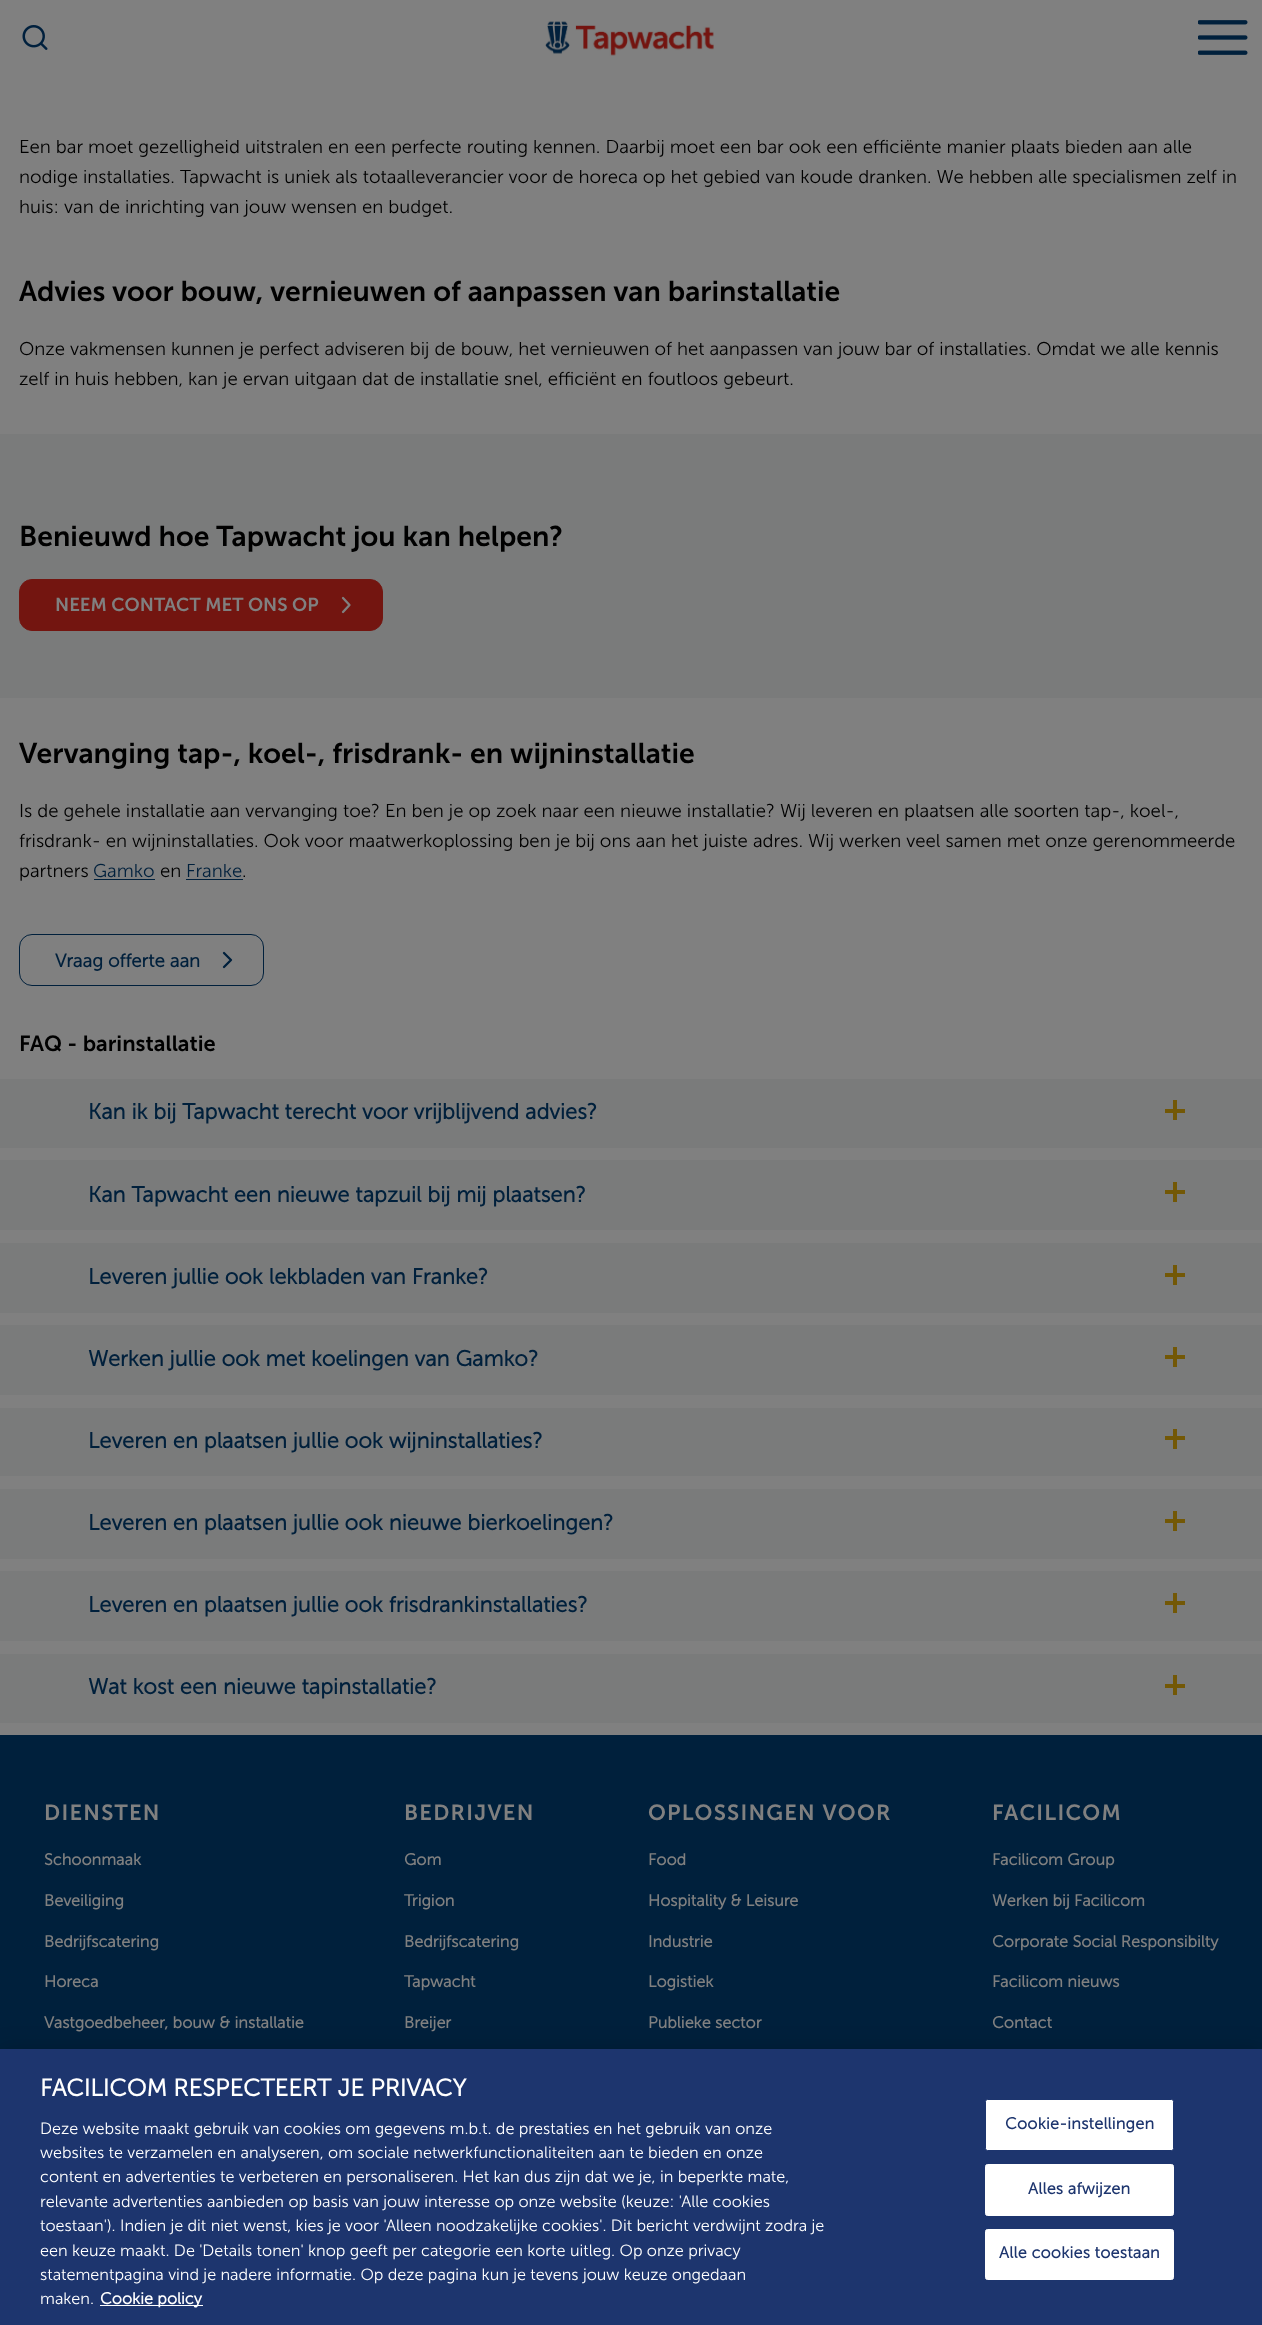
<?xml version="1.0" encoding="UTF-8"?>
<svg xmlns="http://www.w3.org/2000/svg" xmlns:xlink="http://www.w3.org/1999/xlink" width="1262" height="2325">
  <rect width="100%" height="100%" fill="#808080" />
  <image x="22" y="25" width="26" height="25" xlink:href="image1.png" />
  <image x="545" y="21" width="169" height="35" xlink:href="image2.png" />
  <image x="1198" y="20" width="50" height="35" xlink:href="image3.png" />
  <rect y="434" width="1262" height="264" fill="#7a7b7b" />
  <rect x="19.5" y="579.5" width="363" height="51" rx="12.5" fill="#731510" stroke="#731510" />
  <path d="M 343 612 l 6.5 -7 l -6.5 -7" fill="none" stroke="#808080" stroke-width="2.3" stroke-linecap="round" stroke-linejoin="round" />
  <rect x="94" y="879" width="61" height="1" fill="#00203c" />
  <rect x="186" y="879" width="57" height="1" fill="#00203c" />
  <rect x="19.5" y="934.5" width="244" height="51" rx="12.5" fill="none" stroke="#00203c" />
  <path d="M 224 967 l 7 -7 l -7 -7" fill="none" stroke="#00203c" stroke-width="2.3" stroke-linecap="round" stroke-linejoin="round" />
  <rect y="1079" width="1262" height="69" fill="#7a7b7b" />
  <rect x="1165" y="1109" width="20" height="4" fill="#735806" />
  <rect x="1173" y="1100" width="4" height="20" fill="#735806" />
  <rect y="1160" width="1262" height="70" fill="#7a7b7b" />
  <rect x="1165" y="1190" width="20" height="4" fill="#735806" />
  <rect x="1173" y="1182" width="4" height="20" fill="#735806" />
  <rect y="1243" width="1262" height="70" fill="#7a7b7b" />
  <rect x="1165" y="1273" width="20" height="4" fill="#735806" />
  <rect x="1173" y="1265" width="4" height="20" fill="#735806" />
  <rect y="1325" width="1262" height="70" fill="#7a7b7b" />
  <rect x="1165" y="1355" width="20" height="4" fill="#735806" />
  <rect x="1173" y="1347" width="4" height="20" fill="#735806" />
  <rect y="1408" width="1262" height="68" fill="#7a7b7b" />
  <rect x="1165" y="1436" width="20" height="4" fill="#735806" />
  <rect x="1173" y="1429" width="4" height="20" fill="#735806" />
  <rect y="1489" width="1262" height="70" fill="#7a7b7b" />
  <rect x="1165" y="1519" width="20" height="4" fill="#735806" />
  <rect x="1173" y="1511" width="4" height="20" fill="#735806" />
  <rect y="1571" width="1262" height="70" fill="#7a7b7b" />
  <rect x="1165" y="1601" width="20" height="4" fill="#735806" />
  <rect x="1173" y="1593" width="4" height="20" fill="#735806" />
  <rect y="1654" width="1262" height="69" fill="#7a7b7b" />
  <rect x="1165" y="1684" width="20" height="4" fill="#735806" />
  <rect x="1173" y="1675" width="4" height="20" fill="#735806" />
  <rect y="1735" width="1262" height="314" fill="#00203c" />
  <rect y="2049" width="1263" height="276" fill="#000000" fill-opacity="0.2" filter="blur(11px)" />
  <rect y="2049" width="1262" height="276" fill="#1d356e" />
  <rect x="100" y="2305" width="103" height="1" fill="#ffffff" />
  <rect x="985.5" y="2099.5" width="188" height="51" rx="2" fill="#ffffff" stroke="#1d356e" />
  <rect x="985.5" y="2164.5" width="188" height="51" rx="2" fill="#ffffff" stroke="#ffffff" />
  <rect x="985.5" y="2229.5" width="188" height="50" rx="2" fill="#ffffff" stroke="#ffffff" />
  <text x="19" y="153" style="font-family: Museo Sans; font-size: 18.6px; font-weight: 300; fill: #000000">Een bar moet gezelligheid uitstralen en een perfecte routing kennen. Daarbij moet een bar ook een efficiënte manier plaats bieden aan alle</text>
  <text x="19" y="183" style="font-family: Museo Sans; font-size: 18.6px; font-weight: 300; fill: #000000">nodige installaties. Tapwacht is uniek als totaalleverancier voor de horeca op het gebied van koude dranken. We hebben alle specialismen zelf in</text>
  <text x="19" y="213" style="font-family: Museo Sans; font-size: 18.6px; font-weight: 300; fill: #000000">huis: van de inrichting van jouw wensen en budget.</text>
  <text x="19" y="301" style="font-family: Museo Sans; font-size: 28.4px; font-weight: 600; fill: #000000">Advies voor bouw, vernieuwen of aanpassen van barinstallatie</text>
  <text x="19" y="355" style="font-family: Museo Sans; font-size: 18.6px; font-weight: 300; fill: #000000">Onze vakmensen kunnen je perfect adviseren bij de bouw, het vernieuwen of het aanpassen van jouw bar of installaties. Omdat we alle kennis</text>
  <text x="19" y="385" style="font-family: Museo Sans; font-size: 18.6px; font-weight: 300; fill: #000000">zelf in huis hebben, kan je ervan uitgaan dat de installatie snel, efficiënt en foutloos gebeurt.</text>
  <text x="19" y="546" style="font-family: Museo Sans; font-size: 28.4px; font-weight: 600; fill: #000000">Benieuwd hoe Tapwacht jou kan helpen?</text>
  <text x="55" y="611" style="font-family: Museo Sans; font-size: 18.6px; font-weight: 600; fill: #808080">NEEM CONTACT MET ONS OP</text>
  <text x="19" y="763" style="font-family: Museo Sans; font-size: 28.4px; font-weight: 600; fill: #000000">Vervanging tap-, koel-, frisdrank- en wijninstallatie</text>
  <text x="19" y="817" style="font-family: Museo Sans; font-size: 18.6px; font-weight: 300; fill: #000000">Is de gehele installatie aan vervanging toe? En ben je op zoek naar een nieuwe installatie? Wij leveren en plaatsen alle soorten tap-, koel-,</text>
  <text x="19" y="847" style="font-family: Museo Sans; font-size: 18.6px; font-weight: 300; fill: #000000">frisdrank- en wijninstallaties. Ook voor maatwerkoplossing ben je bij ons aan het juiste adres. Wij werken veel samen met onze gerenommeerde</text>
  <text x="19" y="877" style="font-family: Museo Sans; font-size: 18.6px; font-weight: 300; fill: #000000">partners</text>
  <text x="93" y="877" style="font-family: Museo Sans; font-size: 18.6px; font-weight: 300; fill: #00203c">Gamko</text>
  <text x="160" y="877" style="font-family: Museo Sans; font-size: 18.6px; font-weight: 300; fill: #000000">en</text>
  <text x="186" y="877" style="font-family: Museo Sans; font-size: 18.6px; font-weight: 300; fill: #00203c">Franke</text>
  <text x="242" y="877" style="font-family: Museo Sans; font-size: 18.6px; font-weight: 300; fill: #000000">.</text>
  <text x="55" y="967" style="font-family: Museo Sans; font-size: 18.6px; font-weight: bold; fill: #00203c">Vraag offerte aan</text>
  <text x="19" y="1051" style="font-family: Museo Sans; font-size: 21.9px; font-weight: 600; fill: #000000">FAQ - barinstallatie</text>
  <text x="88" y="1119" style="font-family: Museo Sans; font-size: 21.9px; font-weight: bold; fill: #00203c">Kan ik bij Tapwacht terecht voor vrijblijvend advies?</text>
  <text x="88" y="1202" style="font-family: Museo Sans; font-size: 21.9px; font-weight: bold; fill: #00203c">Kan Tapwacht een nieuwe tapzuil bij mij plaatsen?</text>
  <text x="88" y="1284" style="font-family: Museo Sans; font-size: 21.9px; font-weight: bold; fill: #00203c">Leveren jullie ook lekbladen van Franke?</text>
  <text x="88" y="1366" style="font-family: Museo Sans; font-size: 21.9px; font-weight: bold; fill: #00203c">Werken jullie ook met koelingen van Gamko?</text>
  <text x="88" y="1448" style="font-family: Museo Sans; font-size: 21.9px; font-weight: bold; fill: #00203c">Leveren en plaatsen jullie ook wijninstallaties?</text>
  <text x="88" y="1530" style="font-family: Museo Sans; font-size: 21.9px; font-weight: bold; fill: #00203c">Leveren en plaatsen jullie ook nieuwe bierkoelingen?</text>
  <text x="88" y="1612" style="font-family: Museo Sans; font-size: 21.9px; font-weight: bold; fill: #00203c">Leveren en plaatsen jullie ook frisdrankinstallaties?</text>
  <text x="88" y="1694" style="font-family: Museo Sans; font-size: 21.9px; font-weight: bold; fill: #00203c">Wat kost een nieuwe tapinstallatie?</text>
  <text x="44" y="1820" style="font-family: Museo Sans; font-size: 21.9px; font-weight: 600; letter-spacing: 1.25px; fill: #808080">DIENSTEN</text>
  <text x="44" y="1865" style="font-family: Museo Sans; font-size: 16.25px; font-weight: bold; fill: #808080">Schoonmaak</text>
  <text x="44" y="1906" style="font-family: Museo Sans; font-size: 16.25px; font-weight: bold; fill: #808080">Beveiliging</text>
  <text x="44" y="1947" style="font-family: Museo Sans; font-size: 16.25px; font-weight: bold; fill: #808080">Bedrijfscatering</text>
  <text x="44" y="1987" style="font-family: Museo Sans; font-size: 16.25px; font-weight: bold; fill: #808080">Horeca</text>
  <text x="44" y="2028" style="font-family: Museo Sans; font-size: 16.25px; font-weight: bold; fill: #808080">Vastgoedbeheer, bouw &amp; installatie</text>
  <text x="404" y="1820" style="font-family: Museo Sans; font-size: 21.9px; font-weight: 600; letter-spacing: 1.25px; fill: #808080">BEDRIJVEN</text>
  <text x="404" y="1865" style="font-family: Museo Sans; font-size: 16.25px; font-weight: bold; fill: #808080">Gom</text>
  <text x="404" y="1906" style="font-family: Museo Sans; font-size: 16.25px; font-weight: bold; fill: #808080">Trigion</text>
  <text x="404" y="1947" style="font-family: Museo Sans; font-size: 16.25px; font-weight: bold; fill: #808080">Bedrijfscatering</text>
  <text x="404" y="1987" style="font-family: Museo Sans; font-size: 16.25px; font-weight: bold; fill: #808080">Tapwacht</text>
  <text x="404" y="2028" style="font-family: Museo Sans; font-size: 16.25px; font-weight: bold; fill: #808080">Breijer</text>
  <text x="648" y="1820" style="font-family: Museo Sans; font-size: 21.9px; font-weight: 600; letter-spacing: 1.25px; fill: #808080">OPLOSSINGEN VOOR</text>
  <text x="648" y="1865" style="font-family: Museo Sans; font-size: 16.25px; font-weight: bold; fill: #808080">Food</text>
  <text x="648" y="1906" style="font-family: Museo Sans; font-size: 16.25px; font-weight: bold; fill: #808080">Hospitality &amp; Leisure</text>
  <text x="648" y="1947" style="font-family: Museo Sans; font-size: 16.25px; font-weight: bold; fill: #808080">Industrie</text>
  <text x="648" y="1987" style="font-family: Museo Sans; font-size: 16.25px; font-weight: bold; fill: #808080">Logistiek</text>
  <text x="648" y="2028" style="font-family: Museo Sans; font-size: 16.25px; font-weight: bold; fill: #808080">Publieke sector</text>
  <text x="992" y="1820" style="font-family: Museo Sans; font-size: 21.9px; font-weight: 600; letter-spacing: 1.25px; fill: #808080">FACILICOM</text>
  <text x="992" y="1865" style="font-family: Museo Sans; font-size: 16.25px; font-weight: bold; fill: #808080">Facilicom Group</text>
  <text x="992" y="1906" style="font-family: Museo Sans; font-size: 16.25px; font-weight: bold; fill: #808080">Werken bij Facilicom</text>
  <text x="992" y="1947" style="font-family: Museo Sans; font-size: 16.25px; font-weight: bold; fill: #808080">Corporate Social Responsibilty</text>
  <text x="992" y="1987" style="font-family: Museo Sans; font-size: 16.25px; font-weight: bold; fill: #808080">Facilicom nieuws</text>
  <text x="992" y="2028" style="font-family: Museo Sans; font-size: 16.25px; font-weight: bold; fill: #808080">Contact</text>
  <text x="40" y="2096" style="font-family: Museo Sans; font-size: 24px; font-weight: bold; fill: #ffffff">FACILICOM RESPECTEERT JE PRIVACY</text>
  <text x="40" y="2134" style="font-family: Museo Sans; font-size: 16.25px; font-weight: 300; fill: #ffffff">Deze website maakt gebruik van cookies om gegevens m.b.t. de prestaties en het gebruik van onze</text>
  <text x="40" y="2158" style="font-family: Museo Sans; font-size: 16.25px; font-weight: 300; fill: #ffffff">websites te verzamelen en analyseren, om sociale netwerkfunctionaliteiten aan te bieden en onze</text>
  <text x="40" y="2182" style="font-family: Museo Sans; font-size: 16.25px; font-weight: 300; fill: #ffffff">content en advertenties te verbeteren en personaliseren. Het kan dus zijn dat we je, in beperkte mate,</text>
  <text x="40" y="2207" style="font-family: Museo Sans; font-size: 16.25px; font-weight: 300; fill: #ffffff">relevante advertenties aanbieden op basis van jouw interesse op onze website (keuze: 'Alle cookies</text>
  <text x="40" y="2231" style="font-family: Museo Sans; font-size: 16.25px; font-weight: 300; fill: #ffffff">toestaan'). Indien je dit niet wenst, kies je voor 'Alleen noodzakelijke cookies'. Dit bericht verdwijnt zodra je</text>
  <text x="40" y="2256" style="font-family: Museo Sans; font-size: 16.25px; font-weight: 300; fill: #ffffff">een keuze maakt. De 'Details tonen' knop geeft per categorie een korte uitleg. Op onze privacy</text>
  <text x="40" y="2280" style="font-family: Museo Sans; font-size: 16.25px; font-weight: 300; fill: #ffffff">statementpagina vind je nadere informatie. Op deze pagina kun je tevens jouw keuze ongedaan</text>
  <text x="40" y="2304" style="font-family: Museo Sans; font-size: 16.25px; font-weight: 300; fill: #ffffff">maken.</text>
  <text x="100" y="2304" style="font-family: Museo Sans; font-size: 16.25px; font-weight: bold; fill: #ffffff">Cookie policy</text>
  <text x="1005" y="2129" style="font-family: Museo Sans; font-size: 16.25px; font-weight: bold; letter-spacing: 0.2px; fill: #1d356e">Cookie-instellingen</text>
  <text x="1028" y="2194" style="font-family: Museo Sans; font-size: 16.25px; font-weight: bold; letter-spacing: 0.2px; fill: #1d356e">Alles afwijzen</text>
  <text x="999" y="2258" style="font-family: Museo Sans; font-size: 16.25px; font-weight: bold; letter-spacing: 0.2px; fill: #1d356e">Alle cookies toestaan</text>
</svg>
